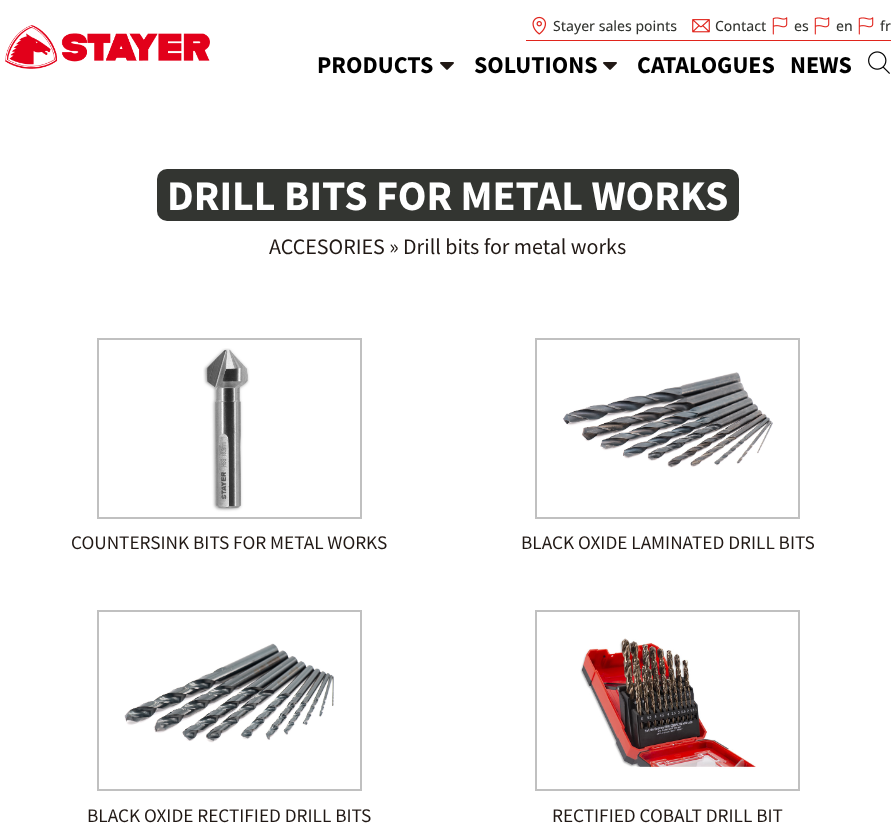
<?xml version="1.0" encoding="UTF-8"?>
<svg xmlns="http://www.w3.org/2000/svg" xmlns:xlink="http://www.w3.org/1999/xlink" width="896" height="831">
  <rect width="100%" height="100%" fill="#ffffff" />
  <image x="5" y="25" width="205" height="44" xlink:href="image1.png" />
  <rect x="526" y="40" width="365" height="1" fill="#e0241c" />
  <image x="532" y="16" width="15" height="19" xlink:href="image2.png" />
  <image x="692" y="19" width="18" height="14" xlink:href="image3.png" />
  <image x="772" y="17" width="16" height="18" xlink:href="image4.png" />
  <image x="814" y="17" width="16" height="18" xlink:href="image4.png" />
  <image x="858" y="17" width="16" height="18" xlink:href="image4.png" />
  <image x="440" y="62" width="14" height="8" xlink:href="image5.png" />
  <image x="603" y="62" width="14" height="8" xlink:href="image5.png" />
  <image x="868" y="51" width="22" height="23" xlink:href="image6.png" />
  <rect x="157" y="169" width="582" height="52" rx="10" fill="#333531" />
  <image x="203" y="348" width="47" height="164" xlink:href="image7.png" />
  <rect x="98" y="339" width="263" height="179" fill="none" stroke="#c0c0c0" stroke-width="2" />
  <image x="563" y="372" width="210" height="96" xlink:href="image8.png" />
  <rect x="536" y="339" width="263" height="179" fill="none" stroke="#c0c0c0" stroke-width="2" />
  <image x="124" y="643" width="210" height="100" xlink:href="image9.png" />
  <rect x="98" y="611" width="263" height="179" fill="none" stroke="#c0c0c0" stroke-width="2" />
  <image x="580" y="638" width="176" height="131" xlink:href="image10.png" />
  <rect x="536" y="611" width="263" height="179" fill="none" stroke="#c0c0c0" stroke-width="2" />
  <text x="553" y="31" style="font-family: Open Sans; font-size: 14px; font-weight: 500; fill: #333531">Stayer sales points</text>
  <text x="715" y="31" style="font-family: Open Sans; font-size: 14px; font-weight: 500; fill: #333531">Contact</text>
  <text x="794" y="31" style="font-family: Open Sans; font-size: 14px; font-weight: 500; fill: #333531">es</text>
  <text x="836" y="31" style="font-family: Open Sans; font-size: 14px; font-weight: 500; fill: #333531">en</text>
  <text x="880" y="31" style="font-family: Open Sans; font-size: 14px; font-weight: 500; fill: #333531">fr</text>
  <text x="317" y="73" style="font-family: Source Sans Pro; font-size: 24px; font-weight: bold; fill: #000000">PRODUCTS</text>
  <text x="474" y="73" style="font-family: Source Sans Pro; font-size: 24px; font-weight: bold; fill: #000000">SOLUTIONS</text>
  <text x="637" y="73" style="font-family: Source Sans Pro; font-size: 24px; font-weight: bold; fill: #000000">CATALOGUES</text>
  <text x="790" y="73" style="font-family: Source Sans Pro; font-size: 24px; font-weight: bold; fill: #000000">NEWS</text>
  <text x="167" y="210" style="font-family: Source Sans Pro; font-size: 42px; font-weight: bold; fill: #ffffff">DRILL BITS FOR METAL WORKS</text>
  <text x="269" y="254" style="font-family: Source Sans Pro; font-size: 22px; fill: #211915">ACCESORIES » Drill bits for metal works</text>
  <text x="71" y="549" style="font-family: Source Sans Pro; font-size: 19.25px; fill: #211915">COUNTERSINK BITS FOR METAL WORKS</text>
  <text x="521" y="549" style="font-family: Source Sans Pro; font-size: 19.25px; fill: #211915">BLACK OXIDE LAMINATED DRILL BITS</text>
  <text x="87" y="822" style="font-family: Source Sans Pro; font-size: 19.25px; fill: #211915">BLACK OXIDE RECTIFIED DRILL BITS</text>
  <text x="552" y="822" style="font-family: Source Sans Pro; font-size: 19.25px; fill: #211915">RECTIFIED COBALT DRILL BIT</text>
</svg>
